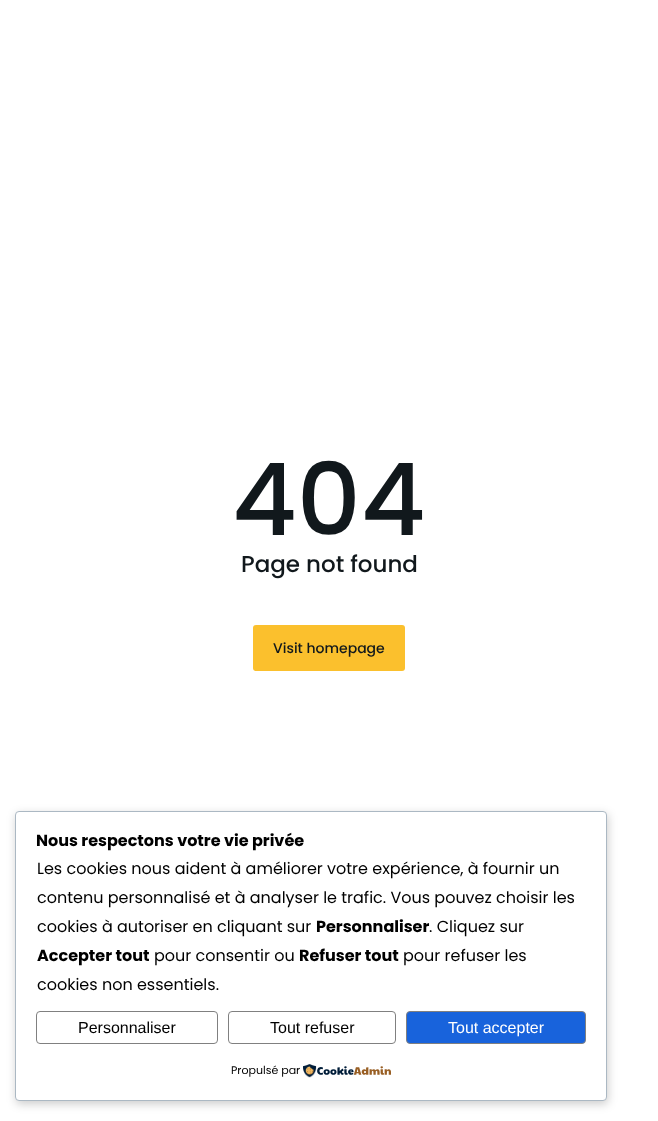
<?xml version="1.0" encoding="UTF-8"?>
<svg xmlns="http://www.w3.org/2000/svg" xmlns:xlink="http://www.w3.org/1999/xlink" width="658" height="1121">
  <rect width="100%" height="100%" fill="#ffffff" />
  <rect x="253" y="625" width="152" height="46" rx="3" fill="#fbc02d" />
  <rect x="16" y="814" width="592" height="290" rx="4" fill="#000000" fill-opacity="0.2" filter="blur(5px)" />
  <rect x="15.5" y="811.5" width="591" height="289" rx="3.5" fill="#ffffff" stroke="#abb8c3" />
  <rect x="36.5" y="1011.5" width="181" height="32" rx="3.5" fill="none" stroke="#808080" />
  <rect x="228.5" y="1011.5" width="167" height="32" rx="3.5" fill="none" stroke="#808080" />
  <rect x="406.5" y="1011.5" width="179" height="32" rx="3.5" fill="#1863dc" stroke="#808080" />
  <image x="303" y="1064" width="88" height="14" xlink:href="image1.png" />
  <text x="232" y="535" style="font-family: Poppins; font-size: 100px; font-weight: 500; fill: #11181c">404</text>
  <text x="241" y="572" style="font-family: Poppins; font-size: 23px; font-weight: 500; fill: #11181c">Page not found</text>
  <text x="273" y="653" style="font-family: Poppins; font-size: 14px; font-weight: 500; fill: #11181c">Visit homepage</text>
  <text x="36" y="846" style="font-family: Poppins; font-size: 16px; font-weight: bold; fill: #000000">Nous respectons votre vie privée</text>
  <text x="37" y="874" style="font-family: Poppins; font-size: 16px; fill: #000000">Les cookies nous aident à améliorer votre expérience, à fournir un</text>
  <text x="37" y="903" style="font-family: Poppins; font-size: 16px; fill: #000000">contenu personnalisé et à analyser le trafic. Vous pouvez choisir les</text>
  <text x="37" y="932" style="font-family: Poppins; font-size: 16px; fill: #000000">cookies à autoriser en cliquant sur</text>
  <text x="316" y="932" style="font-family: Poppins; font-size: 16px; font-weight: bold; fill: #000000">Personnaliser</text>
  <text x="429" y="932" style="font-family: Poppins; font-size: 16px; fill: #000000">. Cliquez sur</text>
  <text x="37" y="961" style="font-family: Poppins; font-size: 16px; font-weight: bold; fill: #000000">Accepter tout</text>
  <text x="154" y="961" style="font-family: Poppins; font-size: 16px; fill: #000000">pour consentir ou</text>
  <text x="299" y="961" style="font-family: Poppins; font-size: 16px; font-weight: bold; fill: #000000">Refuser tout</text>
  <text x="403" y="961" style="font-family: Poppins; font-size: 16px; fill: #000000">pour refuser les</text>
  <text x="37" y="990" style="font-family: Poppins; font-size: 16px; fill: #000000">cookies non essentiels.</text>
  <text x="78" y="1033" style="font-family: Liberation Sans; font-size: 16px; fill: #000000">Personnaliser</text>
  <text x="270" y="1033" style="font-family: Liberation Sans; font-size: 16px; fill: #000000">Tout refuser</text>
  <text x="448" y="1033" style="font-family: Liberation Sans; font-size: 16px; fill: #ffffff">Tout accepter</text>
  <text x="231" y="1074" style="font-family: Poppins; font-size: 11px; fill: #000000">Propulsé par</text>
</svg>
